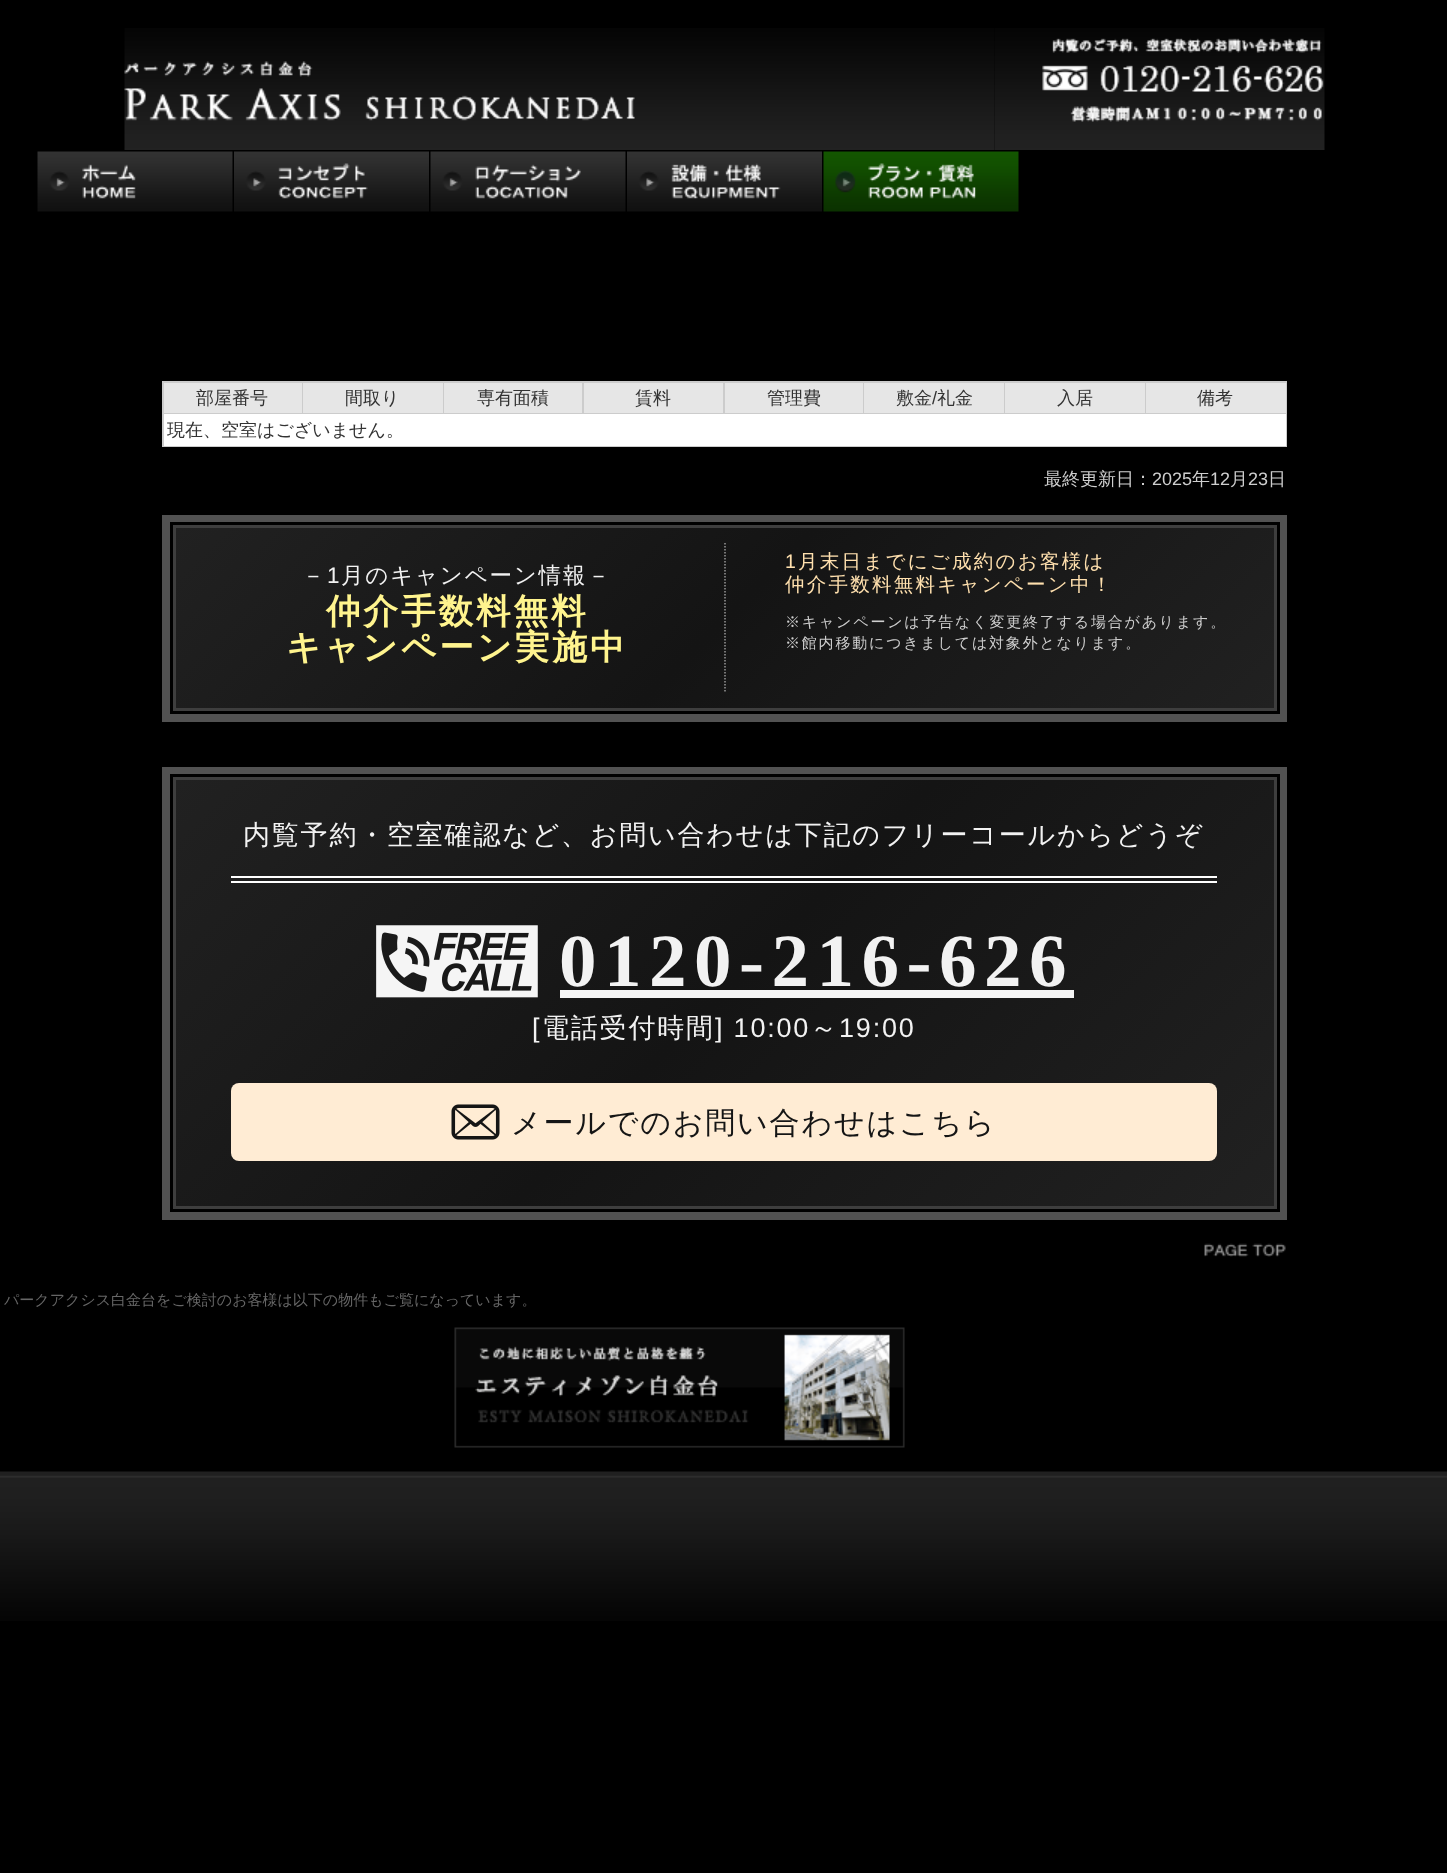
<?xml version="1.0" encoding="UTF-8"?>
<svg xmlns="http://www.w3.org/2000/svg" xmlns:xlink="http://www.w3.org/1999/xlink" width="1447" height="1873">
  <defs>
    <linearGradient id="g1" gradientUnits="userSpaceOnUse" x1="405" y1="299" x2="1044" y2="938"><stop offset="0" stop-color="#212121" /><stop offset="0.5" stop-color="#141414" /><stop offset="1" stop-color="#212121" /></linearGradient>
    <linearGradient id="g2" gradientUnits="userSpaceOnUse" x1="343" y1="612" x2="1106" y2="1374"><stop offset="0" stop-color="#212121" /><stop offset="0.5" stop-color="#141414" /><stop offset="1" stop-color="#212121" /></linearGradient>
  </defs>
  <rect width="100%" height="100%" fill="#000000" />
  <image x="124" y="28" width="871" height="122" xlink:href="image1.png" />
  <image x="994" y="28" width="331" height="122" xlink:href="image2.png" />
  <image x="37" y="151" width="196" height="61" xlink:href="image3.png" />
  <image x="234" y="151" width="195" height="61" xlink:href="image4.png" />
  <image x="430" y="151" width="196" height="61" xlink:href="image5.png" />
  <image x="627" y="151" width="195" height="61" xlink:href="image6.png" />
  <image x="823" y="151" width="196" height="61" xlink:href="image7.png" />
  <rect x="162" y="381" width="1125" height="66" fill="#cccccc" />
  <rect x="164" y="383" width="138" height="30" fill="#e6e6e6" />
  <rect x="303" y="383" width="140" height="30" fill="#e6e6e6" />
  <rect x="444" y="383" width="138" height="30" fill="#e6e6e6" />
  <rect x="584" y="383" width="139" height="30" fill="#e6e6e6" />
  <rect x="725" y="383" width="138" height="30" fill="#e6e6e6" />
  <rect x="864" y="383" width="140" height="30" fill="#e6e6e6" />
  <rect x="1005" y="383" width="140" height="30" fill="#e6e6e6" />
  <rect x="1146" y="383" width="140" height="30" fill="#e6e6e6" />
  <rect x="164" y="414" width="1122" height="32" fill="#ffffff" />
  <rect x="162" y="515" width="1125" height="207" fill="#525252" />
  <rect x="170" y="522" width="1110" height="192" fill="#000000" />
  <rect x="173" y="525" width="1104" height="186" fill="#3e3e3e" />
  <rect x="176" y="528" width="1098" height="180" fill="url(#g1)" />
  <path d="M 725 543 v 150" fill="none" stroke="#969696" stroke-width="1.5" stroke-dasharray="1.5 1.5" />
  <rect x="162" y="767" width="1125" height="453" fill="#525252" />
  <rect x="170" y="774" width="1110" height="438" fill="#000000" />
  <rect x="173" y="777" width="1104" height="432" fill="#3e3e3e" />
  <rect x="176" y="780" width="1098" height="426" fill="url(#g2)" />
  <rect x="231" y="876" width="986" height="2" fill="#ffffff" />
  <rect x="231" y="881" width="986" height="2" fill="#ffffff" />
  <image x="376" y="925" width="162" height="73" xlink:href="image8.png" />
  <rect x="560" y="990" width="514" height="8" fill="#f5f5f5" />
  <rect x="231" y="1083" width="986" height="78" rx="8" fill="#ffecd4" />
  <image x="451" y="1104" width="49" height="36" xlink:href="image9.png" />
  <image x="1204" y="1243" width="82" height="14" xlink:href="image10.png" />
  <image x="454" y="1327" width="451" height="121" xlink:href="image11.png" />
  <image x="0" y="1471" width="1447" height="150" xlink:href="image12.png" />
  <text x="196" y="404" style="font-family: WenQuanYi Zen Hei; font-size: 18px; font-weight: 500; fill: #333333">部屋番号</text>
  <text x="345" y="404" style="font-family: WenQuanYi Zen Hei; font-size: 18px; font-weight: 500; fill: #333333">間取り</text>
  <text x="477" y="404" style="font-family: WenQuanYi Zen Hei; font-size: 18px; font-weight: 500; fill: #333333">専有面積</text>
  <text x="635" y="404" style="font-family: WenQuanYi Zen Hei; font-size: 18px; font-weight: 500; fill: #333333">賃料</text>
  <text x="767" y="404" style="font-family: WenQuanYi Zen Hei; font-size: 18px; font-weight: 500; fill: #333333">管理費</text>
  <text x="896" y="404" style="font-family: WenQuanYi Zen Hei; font-size: 18px; font-weight: 500; fill: #333333">敷金</text>
  <text x="932" y="404" style="font-family: Liberation Sans; font-size: 18px; fill: #333333">/</text>
  <text x="937" y="404" style="font-family: WenQuanYi Zen Hei; font-size: 18px; font-weight: 500; fill: #333333">礼金</text>
  <text x="1057" y="404" style="font-family: WenQuanYi Zen Hei; font-size: 18px; font-weight: 500; fill: #333333">入居</text>
  <text x="1197" y="404" style="font-family: WenQuanYi Zen Hei; font-size: 18px; font-weight: 500; fill: #333333">備考</text>
  <text x="167" y="436" style="font-family: WenQuanYi Zen Hei; font-size: 18px; font-weight: 500; fill: #333333">現在、空室はございません。</text>
  <text x="1044" y="485" style="font-family: WenQuanYi Zen Hei; font-size: 18px; font-weight: 500; fill: #cecece">最終更新日：</text>
  <text x="1152" y="485" style="font-family: Liberation Sans; font-size: 18px; fill: #cecece">2025</text>
  <text x="1192" y="485" style="font-family: WenQuanYi Zen Hei; font-size: 18px; font-weight: 500; fill: #cecece">年</text>
  <text x="1210" y="485" style="font-family: Liberation Sans; font-size: 18px; fill: #cecece">12</text>
  <text x="1230" y="485" style="font-family: WenQuanYi Zen Hei; font-size: 18px; font-weight: 500; fill: #cecece">月</text>
  <text x="1248" y="485" style="font-family: Liberation Sans; font-size: 18px; fill: #cecece">23</text>
  <text x="1268" y="485" style="font-family: WenQuanYi Zen Hei; font-size: 18px; font-weight: 500; fill: #cecece">日</text>
  <text x="302" y="583" style="font-family: WenQuanYi Zen Hei; font-size: 22.5px; font-weight: 500; letter-spacing: 1.8px; fill: #f2f2f2">－</text>
  <text x="327" y="583" style="font-family: Liberation Sans; font-size: 22.5px; letter-spacing: 1.8px; fill: #f2f2f2">1</text>
  <text x="341" y="583" style="font-family: WenQuanYi Zen Hei; font-size: 22.5px; font-weight: 500; letter-spacing: 1.8px; fill: #f2f2f2">月のキャンペーン情報－</text>
  <text x="326" y="623" style="font-family: WenQuanYi Zen Hei; font-size: 34.5px; font-weight: bold; letter-spacing: 3px; fill: #fff48e">仲介手数料無料</text>
  <text x="286" y="659" style="font-family: WenQuanYi Zen Hei; font-size: 34.5px; font-weight: bold; letter-spacing: 3px; fill: #fff48e">キャンペーン実施中</text>
  <text x="785" y="568" style="font-family: Liberation Sans; font-size: 19.5px; letter-spacing: 2.25px; fill: #ffe0ae">1</text>
  <text x="798" y="568" style="font-family: WenQuanYi Zen Hei; font-size: 19.5px; font-weight: 500; letter-spacing: 2.25px; fill: #ffe0ae">月末日までにご成約のお客様は</text>
  <text x="785" y="591" style="font-family: WenQuanYi Zen Hei; font-size: 19.5px; font-weight: 500; letter-spacing: 2.25px; fill: #ffe0ae">仲介手数料無料キャンペーン中！</text>
  <text x="785" y="627" style="font-family: WenQuanYi Zen Hei; font-size: 15px; font-weight: 500; letter-spacing: 1.8px; fill: #cecece">※キャンペーンは予告なく変更終了する場合があります。</text>
  <text x="785" y="648" style="font-family: WenQuanYi Zen Hei; font-size: 15px; font-weight: 500; letter-spacing: 1.8px; fill: #cecece">※館内移動につきましては対象外となります。</text>
  <text x="243" y="844" style="font-family: WenQuanYi Zen Hei; font-size: 27px; font-weight: 500; letter-spacing: 1.8px; fill: #f2f2f2">内覧予約・空室確認など、お問い合わせは下記のフリーコールからどうぞ</text>
  <text x="559" y="986" style="font-family: Liberation Serif; font-size: 75px; font-weight: bold; letter-spacing: 7.5px; fill: #f2f2f2">0120-216-626</text>
  <text x="532" y="1037" style="font-family: Liberation Sans; font-size: 27px; letter-spacing: 1.8px; fill: #f2f2f2">[</text>
  <text x="542" y="1037" style="font-family: WenQuanYi Zen Hei; font-size: 27px; font-weight: 500; letter-spacing: 1.8px; fill: #f2f2f2">電話受付時間</text>
  <text x="715" y="1037" style="font-family: Liberation Sans; font-size: 27px; letter-spacing: 1.8px; fill: #f2f2f2">] 10:00</text>
  <text x="810" y="1037" style="font-family: WenQuanYi Zen Hei; font-size: 27px; font-weight: 500; letter-spacing: 1.8px; fill: #f2f2f2">～</text>
  <text x="839" y="1037" style="font-family: Liberation Sans; font-size: 27px; letter-spacing: 1.8px; fill: #f2f2f2">19:00</text>
  <text x="511" y="1133" style="font-family: WenQuanYi Zen Hei; font-size: 30px; font-weight: 500; letter-spacing: 1.8px; fill: #151515">メールでのお問い合わせはこちら</text>
  <text x="4" y="1305" style="font-family: WenQuanYi Zen Hei; font-size: 15px; font-weight: 500; fill: #666666">パークアクシス白金台をご検討のお客様は以下の物件もご覧になっています。</text>
</svg>
